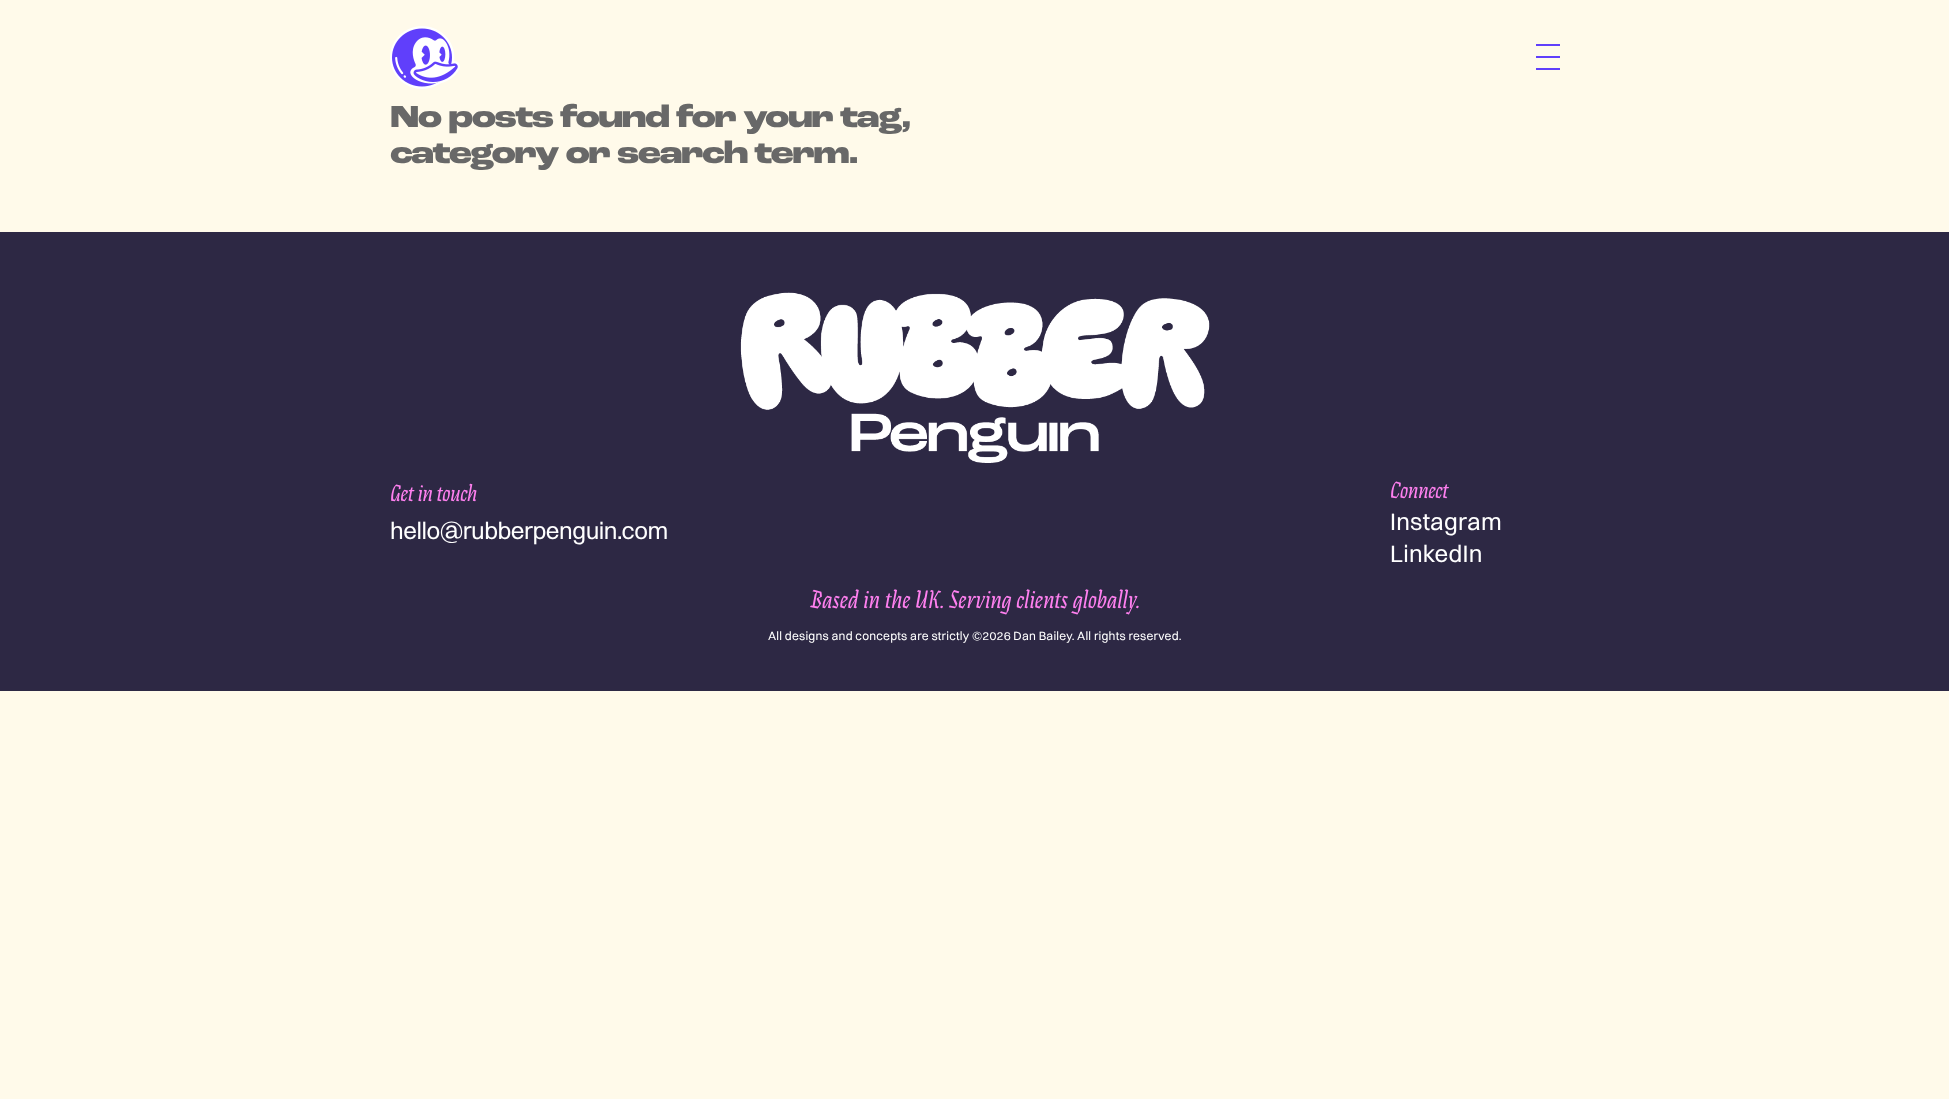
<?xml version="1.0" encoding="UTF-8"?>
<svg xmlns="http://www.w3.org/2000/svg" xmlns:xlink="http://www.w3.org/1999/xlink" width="1949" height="1099">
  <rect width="100%" height="100%" fill="#fffaea" />
  <image x="390" y="26" width="70" height="63" xlink:href="image1.png" />
  <rect x="1536" y="56" width="24" height="2" fill="#603ffb" />
  <rect x="1536" y="44" width="24" height="2" fill="#603ffb" />
  <rect x="1536" y="68" width="24" height="2" fill="#603ffb" />
  <rect y="232" width="1949" height="459" fill="#2d2844" />
  <image x="740" y="292" width="470" height="171" xlink:href="image2.png" />
  <text x="390" y="127" style="font-family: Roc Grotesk; font-size: 32px; font-weight: 800; letter-spacing: -1.6px; fill: #686868">No posts found for your tag,</text>
  <text x="390" y="163" style="font-family: Roc Grotesk; font-size: 32px; font-weight: 800; letter-spacing: -1.6px; fill: #686868">category or search term.</text>
  <text x="390" y="501" style="font-family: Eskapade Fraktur; font-size: 24px; font-style: italic; letter-spacing: -0.5px; fill: #ff80f0">Get in touch</text>
  <text x="390" y="539" style="font-family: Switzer; font-size: 24px; letter-spacing: -0.5px; fill: #ffffff">hello@rubberpenguin.com</text>
  <text x="1390" y="498" style="font-family: Eskapade Fraktur; font-size: 24px; font-style: italic; letter-spacing: -0.5px; fill: #ff80f0">Connect</text>
  <text x="1390" y="530" style="font-family: Switzer; font-size: 24px; letter-spacing: 0.2px; fill: #ffffff">Instagram</text>
  <text x="1390" y="562" style="font-family: Switzer; font-size: 24px; letter-spacing: 0.2px; fill: #ffffff">LinkedIn</text>
  <text x="810" y="608" style="font-family: Eskapade Fraktur; font-size: 26px; font-style: italic; letter-spacing: -0.2px; fill: #ff80f0">Based in the UK. Serving clients globally.</text>
  <text x="768" y="640" style="font-family: Switzer; font-size: 12px; letter-spacing: 0.2px; fill: #ffffff">All designs and concepts are strictly ©2026 Dan Bailey. All rights reserved.</text>
</svg>
